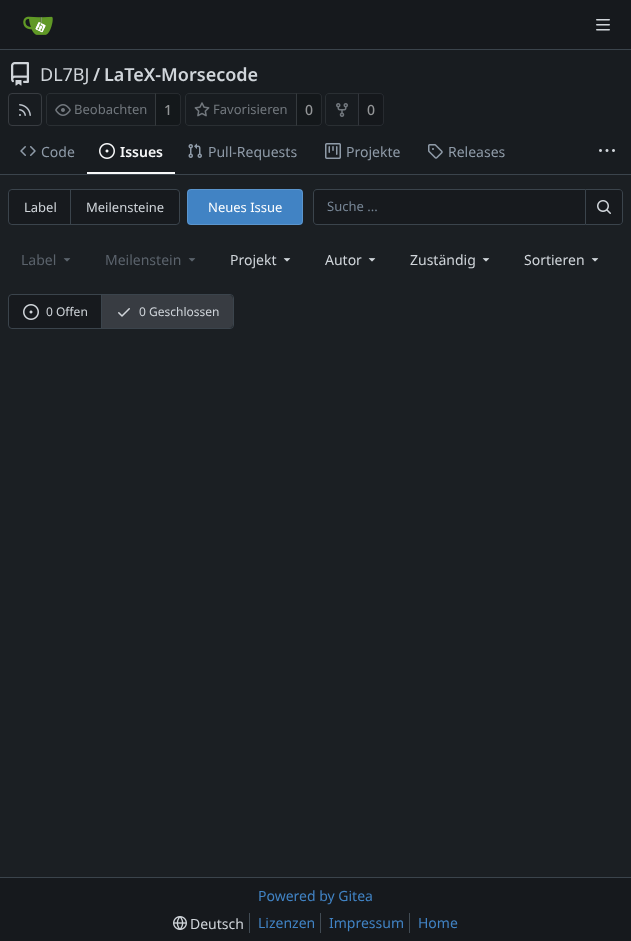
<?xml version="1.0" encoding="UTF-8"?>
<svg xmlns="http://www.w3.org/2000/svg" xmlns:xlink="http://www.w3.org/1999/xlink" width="631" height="941">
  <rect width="100%" height="100%" fill="#1b1f23" />
  <rect width="631" height="49" fill="#16191d" />
  <rect y="49" width="631" height="1" fill="#3b444c" />
  <image x="23" y="16" width="30" height="19" xlink:href="image1.png" />
  <image x="596" y="19" width="14" height="12" xlink:href="image2.png" />
  <rect y="50" width="631" height="124" fill="#181c20" />
  <image x="11" y="62" width="18" height="24" xlink:href="image3.png" />
  <rect x="8.5" y="93.5" width="33" height="32" rx="3.5" fill="none" stroke="#383c41" />
  <image x="19" y="104" width="12" height="12" xlink:href="image4.png" />
  <path d="M 50 93.5 h 105.5 v 32 h -105.5 c -2 0 -3.5 -1.5 -3.5 -3.5 v -25 c 0 -2 1.5 -3.5 3.5 -3.5 z" fill="none" stroke="#2a2f33" />
  <image x="55" y="104" width="16" height="12" xlink:href="image5.png" />
  <path d="M 155 93 h 22 c 2 0 4 2 4 4 v 25 c 0 2 -2 4 -4 4 h -22 z" fill="#000000" fill-opacity="0.14" />
  <path d="M 155.5 93.5 h 21.5 c 2 0 3.5 1.5 3.5 3.5 v 25 c 0 2 -1.5 3.5 -3.5 3.5 h -21.5 z" fill="none" stroke="#e8f3ff" stroke-opacity="0.09" />
  <path d="M 189 93.5 h 107.5 v 32 h -107.5 c -2 0 -3.5 -1.5 -3.5 -3.5 v -25 c 0 -2 1.5 -3.5 3.5 -3.5 z" fill="none" stroke="#2a2f33" />
  <image x="194" y="102" width="16" height="15" xlink:href="image6.png" />
  <path d="M 296 93 h 22 c 2 0 4 2 4 4 v 25 c 0 2 -2 4 -4 4 h -22 z" fill="#000000" fill-opacity="0.14" />
  <path d="M 296.5 93.5 h 21.5 c 2 0 3.5 1.5 3.5 3.5 v 25 c 0 2 -1.5 3.5 -3.5 3.5 h -21.5 z" fill="none" stroke="#e8f3ff" stroke-opacity="0.09" />
  <path d="M 329 93.5 h 29.5 v 32 h -29.5 c -2 0 -3.5 -1.5 -3.5 -3.5 v -25 c 0 -2 1.5 -3.5 3.5 -3.5 z" fill="none" stroke="#2a2f33" />
  <image x="336" y="103" width="12" height="14" xlink:href="image7.png" />
  <path d="M 358 93 h 22 c 2 0 4 2 4 4 v 25 c 0 2 -2 4 -4 4 h -22 z" fill="#0b0d0e" fill-opacity="0.25" />
  <path d="M 358.5 93.5 h 21.5 c 2 0 3.5 1.5 3.5 3.5 v 25 c 0 2 -1.5 3.5 -3.5 3.5 h -21.5 z" fill="none" stroke="#8a929b" stroke-opacity="0.16" />
  <image x="20" y="146" width="16" height="10" xlink:href="image8.png" />
  <rect x="87" y="172" width="88" height="2" fill="#f7f8f9" />
  <image x="99" y="143" width="16" height="16" xlink:href="image9.png" />
  <image x="188" y="143" width="14" height="15" xlink:href="image10.png" />
  <image x="325" y="143" width="16" height="16" xlink:href="image11.png" />
  <image x="428" y="144" width="15" height="15" xlink:href="image12.png" />
  <image x="599" y="149" width="16" height="3" xlink:href="image13.png" />
  <rect y="174" width="631" height="1" fill="#3b444c" />
  <rect x="8.5" y="189.5" width="171" height="35" rx="3.5" fill="none" stroke="#3b444c" />
  <path d="M 13 190 h 58 v 34 h -58 c -2 0 -4 -2 -4 -4 v -26 c 0 -2 2 -4 4 -4 z" fill="#171a1e" />
  <rect x="70" y="190" width="1" height="34" fill="#3b444c" />
  <path d="M 71 190 h 104 c 2 0 4 2 4 4 v 26 c 0 2 -2 4 -4 4 h -104 z" fill="#171a1e" />
  <rect x="187" y="189" width="116" height="36" rx="4" fill="#4183c4" />
  <rect x="187.5" y="189.5" width="115" height="35" rx="3.5" fill="none" stroke="#e8f3ff" stroke-opacity="0.16" />
  <path d="M 317 189 h 268 v 36 h -268 c -2 0 -4 -2 -4 -4 v -28 c 0 -2 2 -4 4 -4 z" fill="#171a1e" />
  <path d="M 317 189 h 268 v 36 h -268 c -2 0 -4 -2 -4 -4 v -28 c 0 -2 2 -4 4 -4 z m 0 1 h 268 v 34 h -268 c -2 0 -3 -1 -3 -3 v -28 c 0 -2 1 -3 3 -3 z" fill="#3b444c" fill-rule="evenodd" />
  <path d="M 585.5 189.5 h 33.5 c 2 0 3.5 1.5 3.5 3.5 v 28 c 0 2 -1.5 3.5 -3.5 3.5 h -33.5 z" fill="#171a1e" stroke="#3b444c" />
  <image x="597" y="200" width="14" height="14" xlink:href="image14.png" />
  <image x="63" y="258" width="8" height="4" xlink:href="image15.png" />
  <image x="188" y="258" width="8" height="4" xlink:href="image15.png" />
  <image x="283" y="258" width="8" height="4" xlink:href="image16.png" />
  <image x="368" y="258" width="8" height="4" xlink:href="image16.png" />
  <image x="482" y="258" width="8" height="4" xlink:href="image16.png" />
  <image x="591" y="258" width="8" height="4" xlink:href="image16.png" />
  <rect x="8.5" y="294.5" width="225" height="34" rx="3.5" fill="none" stroke="#3b444c" />
  <path d="M 13 295 h 89 v 33 h -89 c -2 0 -4 -2 -4 -4 v -25 c 0 -2 2 -4 4 -4 z" fill="#171a1e" />
  <image x="23" y="304" width="16" height="16" xlink:href="image17.png" />
  <rect x="101" y="295" width="1" height="33" fill="#3b444c" />
  <path d="M 102 295 h 127 c 2 0 4 2 4 4 v 25 c 0 2 -2 4 -4 4 h -127 z" fill="#e8f3ff" fill-opacity="0.14" />
  <image x="118" y="308" width="12" height="9" xlink:href="image18.png" />
  <rect y="878" width="631" height="63" fill="#16191d" />
  <rect y="877" width="631" height="1" fill="#3b444c" />
  <image x="173" y="916" width="14" height="14" xlink:href="image19.png" />
  <rect x="249" y="913" width="1" height="20" fill="#414b54" />
  <rect x="320" y="913" width="1" height="20" fill="#414b54" />
  <rect x="409" y="913" width="1" height="20" fill="#414b54" />
  <text x="40" y="81" style="font-family: Noto Sans; font-size: 18px; fill: #d0d5da">DL7BJ</text>
  <text x="93" y="81" style="font-family: Noto Sans; font-size: 18px; font-weight: 600; fill: #d0d5da">/</text>
  <text x="104" y="81" style="font-family: Noto Sans; font-size: 18px; font-weight: 600; fill: #d0d5da">LaTeX-Morsecode</text>
  <text x="74" y="114" style="font-family: Noto Sans; font-size: 13px; fill: #72787e">Beobachten</text>
  <text x="164" y="115" style="font-family: Noto Sans; font-size: 14px; font-weight: 500; fill: #939597">1</text>
  <text x="213" y="114" style="font-family: Noto Sans; font-size: 13px; fill: #72787e">Favorisieren</text>
  <text x="305" y="115" style="font-family: Noto Sans; font-size: 14px; font-weight: 500; fill: #939597">0</text>
  <text x="367" y="115" style="font-family: Noto Sans; font-size: 14px; font-weight: 500; fill: #939597">0</text>
  <text x="41" y="157" style="font-family: Noto Sans; font-size: 14px; fill: #8f9ba8">Code</text>
  <text x="120" y="157" style="font-family: Noto Sans; font-size: 14px; font-weight: 600; fill: #f7f8f9">Issues</text>
  <text x="208" y="157" style="font-family: Noto Sans; font-size: 14px; fill: #8f9ba8">Pull-Requests</text>
  <text x="346" y="157" style="font-family: Noto Sans; font-size: 14px; fill: #8f9ba8">Projekte</text>
  <text x="448" y="157" style="font-family: Noto Sans; font-size: 14px; fill: #8f9ba8">Releases</text>
  <text x="24" y="212" style="font-family: Noto Sans; font-size: 13px; fill: #d0d5da">Label</text>
  <text x="86" y="212" style="font-family: Noto Sans; font-size: 13px; fill: #d0d5da">Meilensteine</text>
  <text x="208" y="212" style="font-family: Noto Sans; font-size: 13px; fill: #ffffff">Neues Issue</text>
  <text x="327" y="211" style="font-family: Noto Sans; font-size: 13px; fill: #788797">Suche ...</text>
  <text x="21" y="265" style="font-family: Noto Sans; font-size: 14px; fill: #5b636c">Label</text>
  <text x="105" y="265" style="font-family: Noto Sans; font-size: 14px; fill: #5b636c">Meilenstein</text>
  <text x="230" y="265" style="font-family: Noto Sans; font-size: 14px; fill: #d0d5da">Projekt</text>
  <text x="325" y="265" style="font-family: Noto Sans; font-size: 14px; fill: #d0d5da">Autor</text>
  <text x="410" y="265" style="font-family: Noto Sans; font-size: 14px; fill: #d0d5da">Zuständig</text>
  <text x="524" y="265" style="font-family: Noto Sans; font-size: 14px; fill: #d0d5da">Sortieren</text>
  <text x="46" y="316" style="font-family: Noto Sans; font-size: 12px; fill: #d0d5da">0 Offen</text>
  <text x="139" y="316" style="font-family: Noto Sans; font-size: 12px; fill: #d0d5da">0 Geschlossen</text>
  <text x="258" y="901" style="font-family: Noto Sans; font-size: 14px; fill: #4183c4">Powered by Gitea</text>
  <text x="190" y="929" style="font-family: Noto Sans; font-size: 14px; fill: #d0d5da">Deutsch</text>
  <text x="258" y="928" style="font-family: Noto Sans; font-size: 14px; fill: #4183c4">Lizenzen</text>
  <text x="329" y="928" style="font-family: Noto Sans; font-size: 14px; fill: #4183c4">Impressum</text>
  <text x="418" y="928" style="font-family: Noto Sans; font-size: 14px; fill: #4183c4">Home</text>
</svg>
